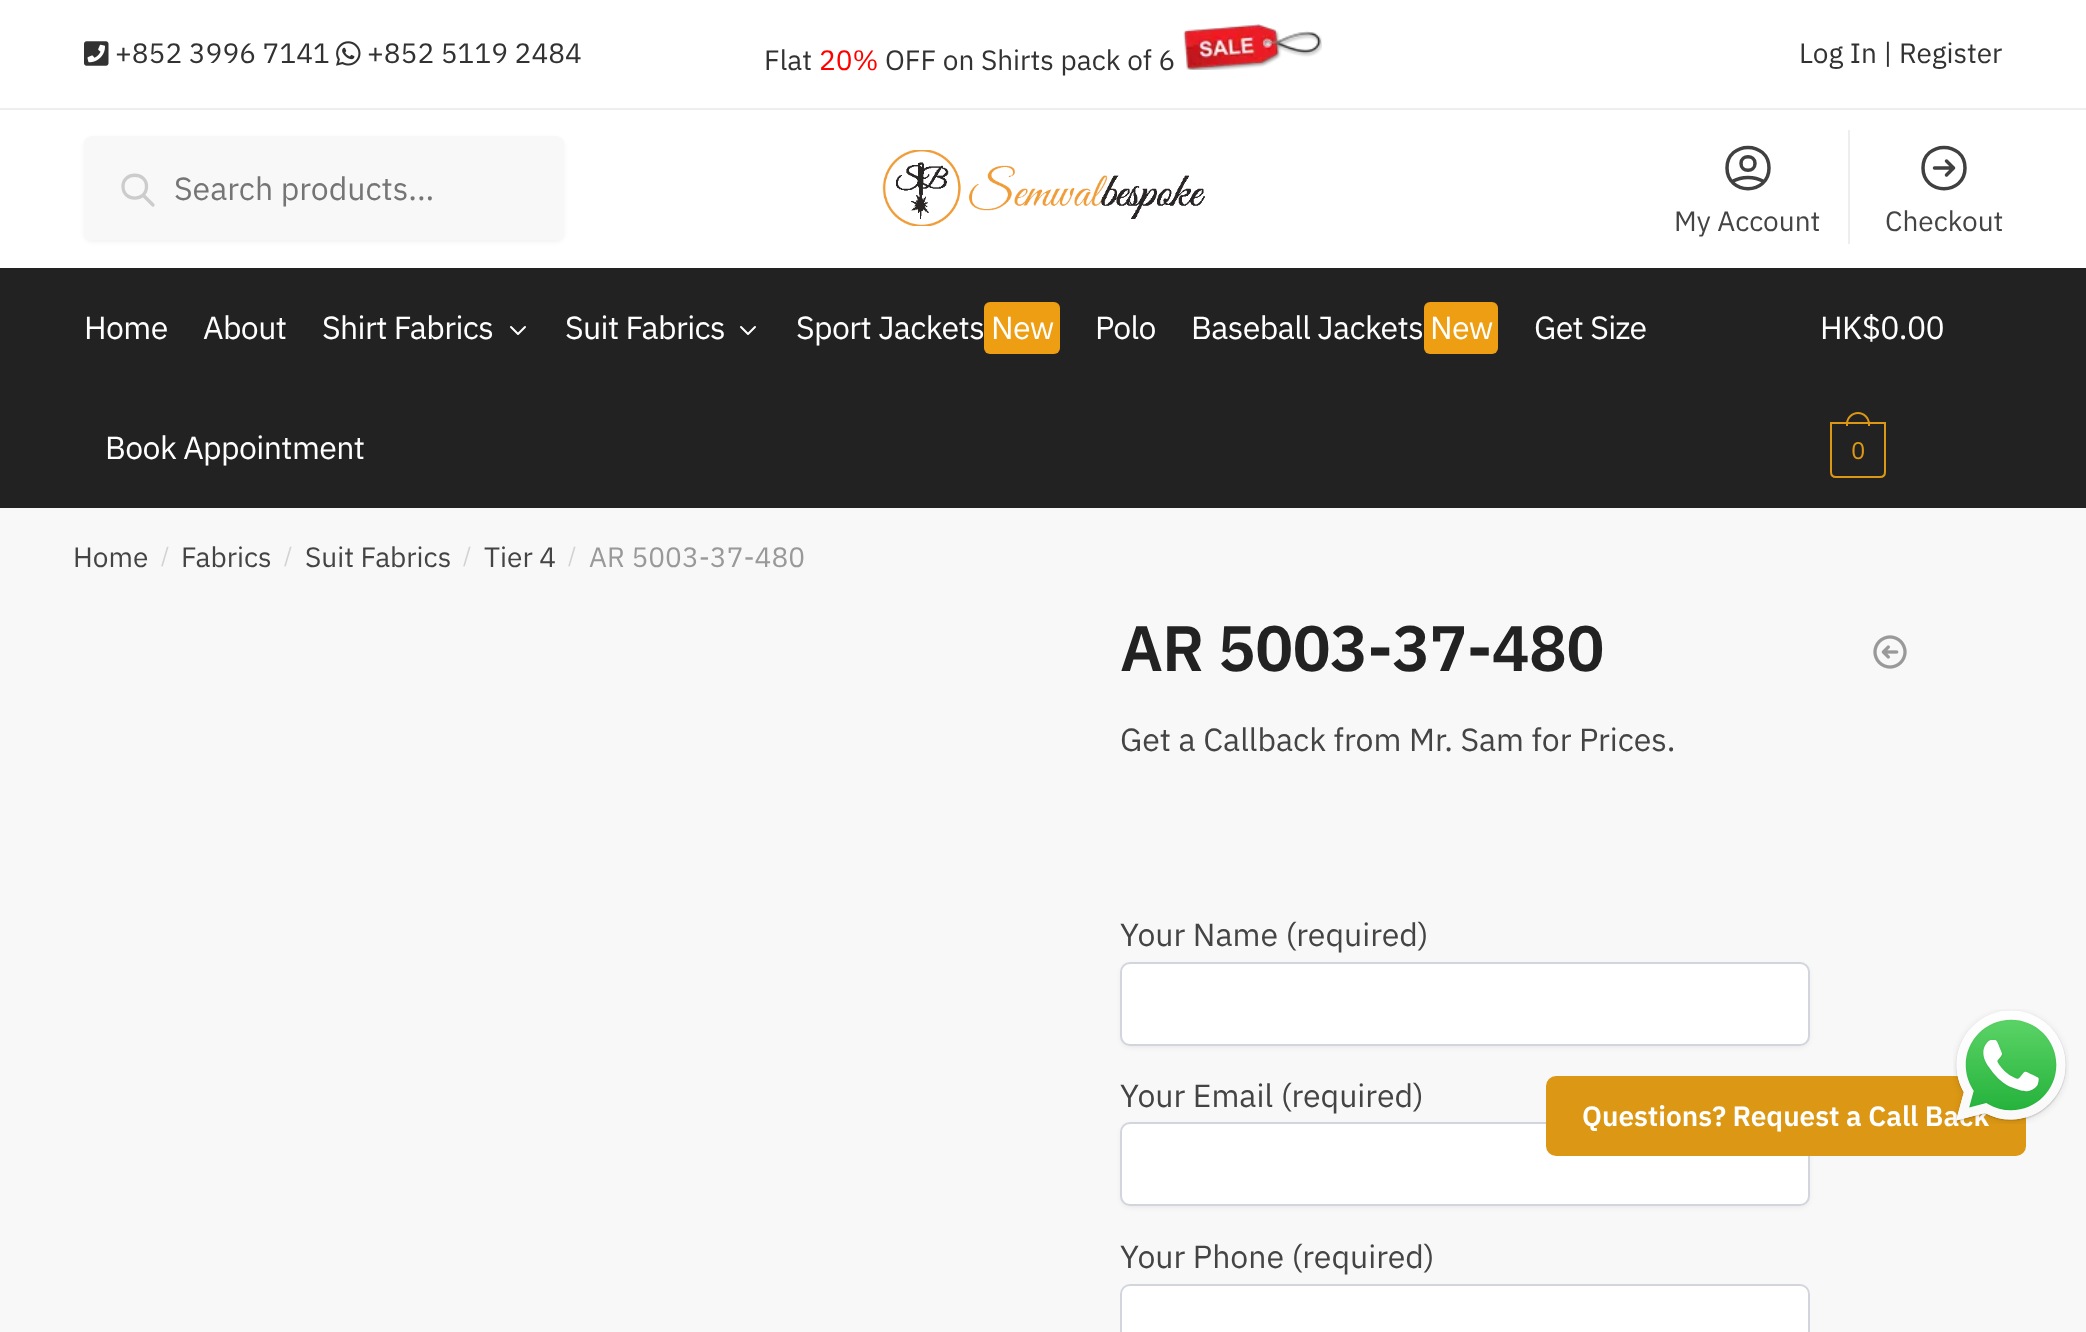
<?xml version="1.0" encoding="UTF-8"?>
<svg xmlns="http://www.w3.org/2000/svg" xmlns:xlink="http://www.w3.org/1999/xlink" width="2086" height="1332">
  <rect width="100%" height="100%" fill="#ffffff" />
  <rect y="108" width="2086" height="2" fill="#eeeeee" />
  <image x="84" y="41" width="25" height="25" xlink:href="image1.png" />
  <image x="336" y="41" width="25" height="25" xlink:href="image2.png" />
  <image x="1183" y="24" width="139" height="46" xlink:href="image3.png" />
  <rect x="84" y="138" width="480" height="104" rx="8" fill="#000000" fill-opacity="0.05" filter="blur(2px)" />
  <rect x="84" y="136" width="480" height="104" rx="8" fill="#f8f8f8" />
  <path d="M 153 205 l -10 -10 m 3.5 -8.5 c 0 15.5 -23.5 15.5 -23.5 0 c 0 -15 23.5 -15 23.5 0 z" fill="none" stroke="#cccccc" stroke-width="3.3" stroke-linecap="round" stroke-linejoin="round" />
  <image x="882" y="150" width="323" height="76" xlink:href="image4.png" />
  <path d="M 1732 181.5 c 10 -5.5 22 -5.5 32 0 m -9 -18 c 0 9 -14 9 -14 0 c 0 -9 14 -9 14 0 z m 14 4.5 c 0 27.5 -42 27.5 -42 0 c 0 -27.5 42 -27.5 42 0 z" fill="none" stroke="#404040" stroke-width="3.5" stroke-linecap="round" stroke-linejoin="round" />
  <rect x="1848" y="130" width="2" height="114" fill="#eeeeee" />
  <path d="M 1946.5 161 l 7 7 m 0 0 l -7 7 m 7 -7 h -19 m 30.5 0 c 0 27.5 -42 27.5 -42 0 c 0 -27.5 42 -27.5 42 0 z" fill="none" stroke="#404040" stroke-width="3.5" stroke-linecap="round" stroke-linejoin="round" />
  <rect y="268" width="2086" height="240" fill="#222222" />
  <path d="M 525 327 l -7 7 l -7 -7" fill="none" stroke="#ffffff" stroke-width="2" stroke-linecap="round" stroke-linejoin="round" />
  <path d="M 755 327 l -7 7 l -7 -7" fill="none" stroke="#ffffff" stroke-width="2" stroke-linecap="round" stroke-linejoin="round" />
  <rect x="984" y="302" width="76" height="52" rx="6" fill="#ee9e13" />
  <rect x="1424" y="302" width="74" height="52" rx="6" fill="#ee9e13" />
  <path d="M 1831 423 h 54 v 49 c 0 3 -2 5 -5 5 h -44 c -3 0 -5 -2 -5 -5 z" fill="none" stroke="#dc9814" stroke-width="2" />
  <path d="M 1858 412 c 6.5 0 12 5.5 12 12 v 2 h -24 v -2 c 0 -6.5 5.5 -12 12 -12 z m 0 2 c 5.5 0 10 4.5 10 10 v 2 h -20 v -2 c 0 -5.5 4.5 -10 10 -10 z" fill="#dc9814" fill-rule="evenodd" />
  <rect y="508" width="2086" height="824" fill="#f8f8f8" />
  <image x="1873" y="635" width="34" height="34" xlink:href="image5.png" />
  <rect x="1120" y="964" width="690" height="84" rx="10" fill="#000000" fill-opacity="0.05" filter="blur(2px)" />
  <rect x="1121" y="963" width="688" height="82" rx="9" fill="#ffffff" stroke="#d2d6dc" stroke-width="2" />
  <rect x="1120" y="1124" width="690" height="84" rx="10" fill="#000000" fill-opacity="0.05" filter="blur(2px)" />
  <rect x="1121" y="1123" width="688" height="82" rx="9" fill="#ffffff" stroke="#d2d6dc" stroke-width="2" />
  <rect x="1121" y="1285" width="688" height="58" rx="9" fill="#ffffff" stroke="#d2d6dc" stroke-width="2" />
  <rect x="1546" y="1076" width="480" height="80" rx="10" fill="#dc9814" />
  <text x="115" y="63" style="font-family: IBM Plex Sans; font-size: 28px; fill: #323232">+852 3996 7141</text>
  <text x="367" y="63" style="font-family: IBM Plex Sans; font-size: 28px; fill: #323232">+852 5119 2484</text>
  <text x="764" y="70" style="font-family: IBM Plex Sans; font-size: 28px; fill: #323232">Flat</text>
  <text x="819" y="70" style="font-family: IBM Plex Sans; font-size: 28px; fill: #ff0000">20%</text>
  <text x="885" y="70" style="font-family: IBM Plex Sans; font-size: 28px; fill: #323232">OFF on Shirts pack of 6</text>
  <text x="1799" y="63" style="font-family: IBM Plex Sans; font-size: 28px; fill: #323232">Log In | Register</text>
  <text x="174" y="200" style="font-family: IBM Plex Sans; font-size: 32px; fill: #757575">Search products...</text>
  <text x="1674" y="231" style="font-family: IBM Plex Sans; font-size: 28px; fill: #444444">My Account</text>
  <text x="1885" y="231" style="font-family: IBM Plex Sans; font-size: 28px; fill: #444444">Checkout</text>
  <text x="84" y="339" style="font-family: IBM Plex Sans; font-size: 32px; letter-spacing: -0.6px; fill: #ffffff">Home</text>
  <text x="203" y="339" style="font-family: IBM Plex Sans; font-size: 32px; letter-spacing: -0.6px; fill: #ffffff">About</text>
  <text x="322" y="339" style="font-family: IBM Plex Sans; font-size: 32px; letter-spacing: -0.6px; fill: #ffffff">Shirt Fabrics</text>
  <text x="565" y="339" style="font-family: IBM Plex Sans; font-size: 32px; letter-spacing: -0.6px; fill: #ffffff">Suit Fabrics</text>
  <text x="796" y="339" style="font-family: IBM Plex Sans; font-size: 32px; letter-spacing: -0.6px; fill: #ffffff">Sport Jackets</text>
  <text x="991" y="339" style="font-family: IBM Plex Sans; font-size: 32px; letter-spacing: -0.6px; fill: #ffffff">New</text>
  <text x="1095" y="339" style="font-family: IBM Plex Sans; font-size: 32px; letter-spacing: -0.6px; fill: #ffffff">Polo</text>
  <text x="1191" y="339" style="font-family: IBM Plex Sans; font-size: 32px; letter-spacing: -0.6px; fill: #ffffff">Baseball Jackets</text>
  <text x="1430" y="339" style="font-family: IBM Plex Sans; font-size: 32px; letter-spacing: -0.6px; fill: #ffffff">New</text>
  <text x="1534" y="339" style="font-family: IBM Plex Sans; font-size: 32px; letter-spacing: -0.6px; fill: #ffffff">Get Size</text>
  <text x="105" y="459" style="font-family: IBM Plex Sans; font-size: 32px; letter-spacing: -0.6px; fill: #ffffff">Book Appointment</text>
  <text x="1820" y="339" style="font-family: IBM Plex Sans; font-size: 32px; letter-spacing: -0.6px; fill: #ffffff">HK$0.00</text>
  <text x="1851" y="459" style="font-family: IBM Plex Sans; font-size: 24px; letter-spacing: -1px; fill: #dc9814">0</text>
  <text x="73" y="567" style="font-family: IBM Plex Sans; font-size: 28px; fill: #444444">Home</text>
  <text x="161" y="563" style="font-family: IBM Plex Sans; font-size: 22px; fill: #d2d2d2">/</text>
  <text x="181" y="567" style="font-family: IBM Plex Sans; font-size: 28px; fill: #444444">Fabrics</text>
  <text x="284" y="563" style="font-family: IBM Plex Sans; font-size: 22px; fill: #d2d2d2">/</text>
  <text x="305" y="567" style="font-family: IBM Plex Sans; font-size: 28px; fill: #444444">Suit Fabrics</text>
  <text x="463" y="563" style="font-family: IBM Plex Sans; font-size: 22px; fill: #d2d2d2">/</text>
  <text x="484" y="567" style="font-family: IBM Plex Sans; font-size: 28px; fill: #444444">Tier 4</text>
  <text x="568" y="563" style="font-family: IBM Plex Sans; font-size: 22px; fill: #d2d2d2">/</text>
  <text x="589" y="567" style="font-family: IBM Plex Sans; font-size: 28px; fill: #999999">AR 5003-37-480</text>
  <text x="1120" y="671" style="font-family: IBM Plex Sans; font-size: 64px; font-weight: 600; letter-spacing: -1px; fill: #222222">AR 5003-37-480</text>
  <text x="1120" y="751" style="font-family: IBM Plex Sans; font-size: 32px; fill: #444444">Get a Callback from Mr. Sam for Prices.</text>
  <text x="1120" y="946" style="font-family: IBM Plex Sans; font-size: 32px; fill: #444444">Your Name (required)</text>
  <text x="1120" y="1107" style="font-family: IBM Plex Sans; font-size: 32px; fill: #444444">Your Email (required)</text>
  <text x="1120" y="1268" style="font-family: IBM Plex Sans; font-size: 32px; fill: #444444">Your Phone (required)</text>
  <text x="1582" y="1126" style="font-family: IBM Plex Sans; font-size: 28px; font-weight: 600; fill: #ffffff">Questions? Request a Call Back</text>
  <image x="1953" y="1009" width="116" height="115" xlink:href="image6.png" />
</svg>
